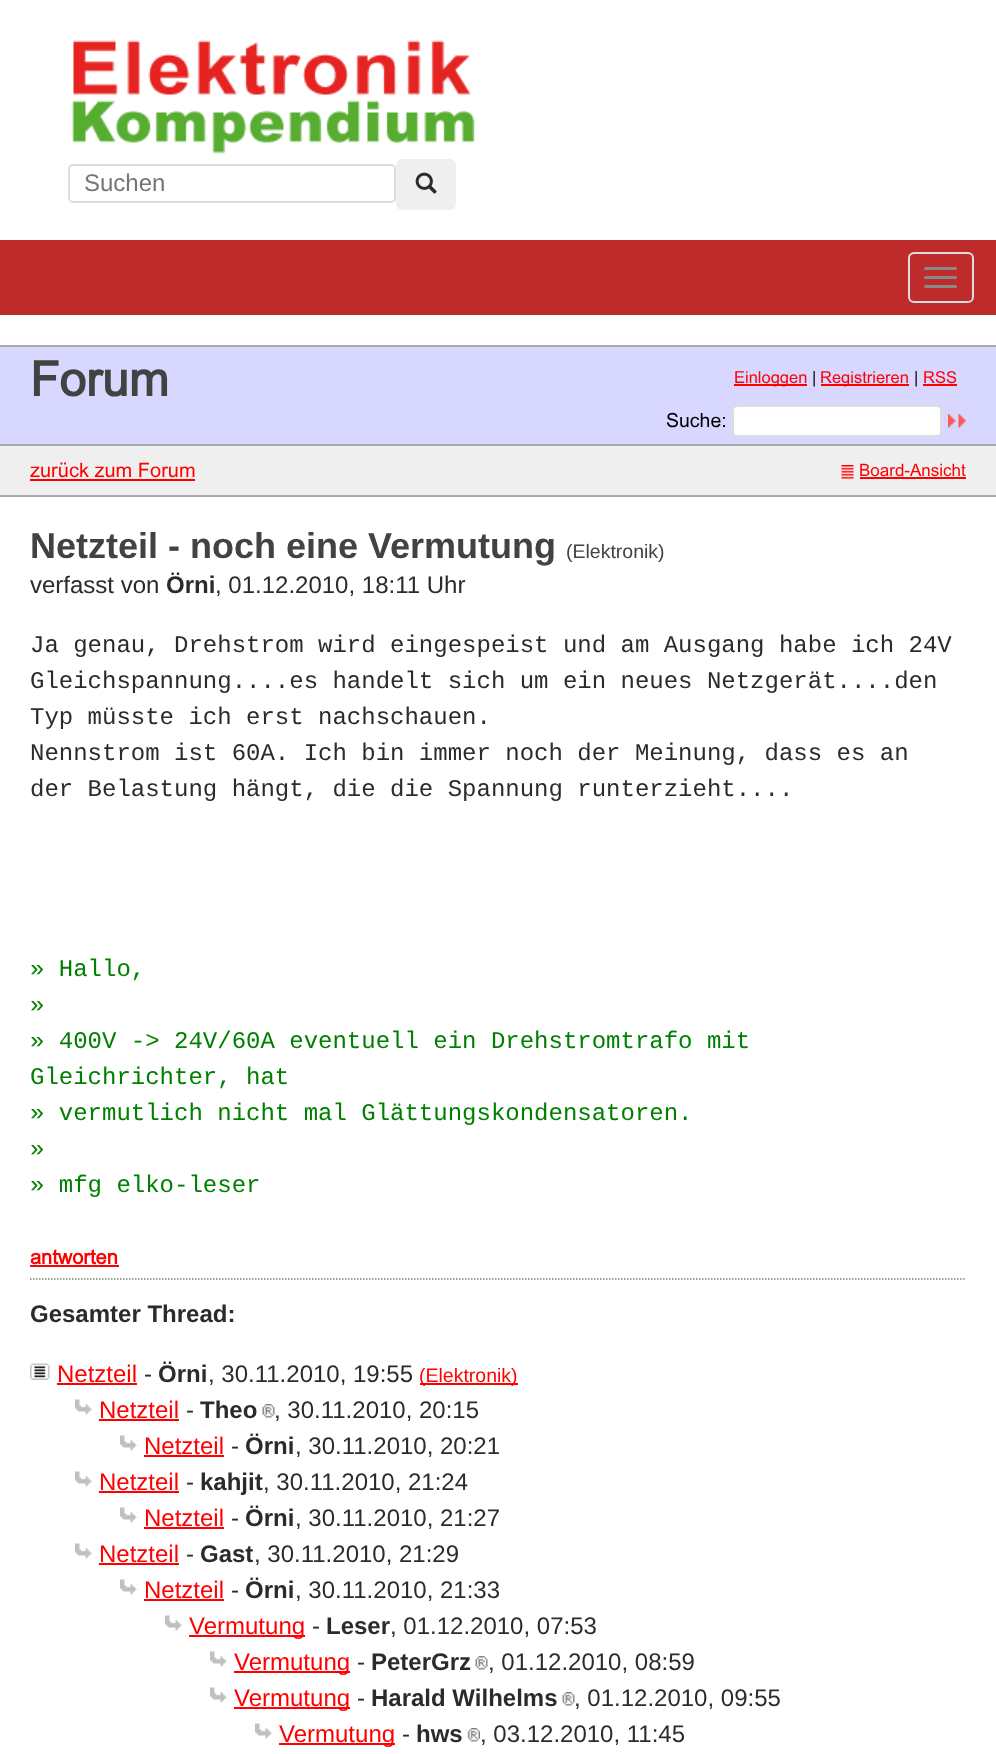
<?xml version="1.0" encoding="UTF-8"?>
<svg xmlns="http://www.w3.org/2000/svg" xmlns:xlink="http://www.w3.org/1999/xlink" width="996" height="1754">
  <rect width="100%" height="100%" fill="#ffffff" />
  <image x="71" y="40" width="404" height="114" xlink:href="image1.png" />
  <rect x="69" y="165" width="326" height="37" rx="4" fill="none" stroke="#dddddd" stroke-width="2" />
  <rect x="396" y="159" width="60" height="51" rx="6" fill="#efefef" />
  <image x="415" y="172" width="22" height="22" xlink:href="image2.png" />
  <rect y="240" width="996" height="75" fill="#bf2b2b" />
  <rect x="909" y="253" width="64" height="49" rx="5" fill="none" stroke="#dddddd" stroke-width="2" />
  <rect x="924" y="267" width="33" height="3" rx="1.5" fill="#888888" />
  <rect x="924" y="276" width="33" height="3" rx="1.5" fill="#888888" />
  <rect x="924" y="285" width="33" height="3" rx="1.5" fill="#888888" />
  <rect y="345" width="996" height="2" fill="#aaaaaa" />
  <rect y="347" width="996" height="97" fill="#d7d7ff" />
  <rect x="734" y="384" width="73" height="2" fill="#ff0000" />
  <rect x="821" y="384" width="88" height="2" fill="#ff0000" />
  <rect x="923" y="384" width="34" height="2" fill="#ff0000" />
  <rect x="733" y="406" width="208" height="30" rx="4" fill="#ffffff" stroke="#dddddd" stroke-width="2" />
  <image x="948" y="414" width="18" height="14" xlink:href="image3.png" />
  <rect y="446" width="996" height="49" fill="#efefef" />
  <rect y="444" width="996" height="2" fill="#aaaaaa" />
  <rect x="30" y="479" width="165" height="2" fill="#ff0000" />
  <image x="841" y="465" width="13" height="14" xlink:href="image4.png" />
  <rect x="860" y="477" width="106" height="2" fill="#ff0000" />
  <rect y="495" width="996" height="2" fill="#aaaaaa" />
  <rect x="30" y="1265" width="89" height="2" fill="#ff0000" />
  <path d="M 30 1279 h 936" fill="none" stroke="#808080" stroke-width="1.5" stroke-dasharray="1.5 1.5" />
  <image x="30" y="1363" width="20" height="17" xlink:href="image5.png" />
  <rect x="57" y="1383" width="80" height="2" fill="#ff0000" />
  <rect x="420" y="1383" width="98" height="2" fill="#ff0000" />
  <image x="75" y="1399" width="17" height="16" xlink:href="image6.png" />
  <rect x="99" y="1419" width="80" height="2" fill="#ff0000" />
  <image x="262" y="1404" width="13" height="14" xlink:href="image7.png" />
  <image x="120" y="1435" width="17" height="16" xlink:href="image6.png" />
  <rect x="144" y="1455" width="80" height="2" fill="#ff0000" />
  <image x="75" y="1471" width="17" height="16" xlink:href="image6.png" />
  <rect x="99" y="1491" width="80" height="2" fill="#ff0000" />
  <image x="120" y="1507" width="17" height="16" xlink:href="image6.png" />
  <rect x="144" y="1527" width="80" height="2" fill="#ff0000" />
  <image x="75" y="1543" width="17" height="16" xlink:href="image6.png" />
  <rect x="99" y="1563" width="80" height="2" fill="#ff0000" />
  <image x="120" y="1579" width="17" height="16" xlink:href="image6.png" />
  <rect x="144" y="1599" width="80" height="2" fill="#ff0000" />
  <image x="165" y="1615" width="17" height="16" xlink:href="image6.png" />
  <rect x="189" y="1635" width="116" height="2" fill="#ff0000" />
  <image x="210" y="1651" width="17" height="16" xlink:href="image6.png" />
  <rect x="234" y="1671" width="116" height="2" fill="#ff0000" />
  <image x="475" y="1656" width="13" height="14" xlink:href="image8.png" />
  <image x="210" y="1687" width="17" height="16" xlink:href="image6.png" />
  <rect x="234" y="1707" width="116" height="2" fill="#ff0000" />
  <image x="562" y="1692" width="13" height="14" xlink:href="image8.png" />
  <image x="255" y="1723" width="17" height="16" xlink:href="image6.png" />
  <rect x="279" y="1743" width="116" height="2" fill="#ff0000" />
  <image x="467" y="1728" width="13" height="14" xlink:href="image9.png" />
  <text x="84" y="191" style="font-family: Liberation Sans; font-size: 24px; fill: #757575">Suchen</text>
  <text x="30" y="396" style="font-family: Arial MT; font-size: 48px; font-weight: bold; fill: #424242">Forum</text>
  <text x="734" y="383" style="font-family: Arial MT; font-size: 16.5px; fill: #ff0000">Einloggen</text>
  <text x="812" y="383" style="font-family: Arial MT; font-size: 16.5px; fill: #000000">|</text>
  <text x="820" y="383" style="font-family: Arial MT; font-size: 16.5px; fill: #ff0000">Registrieren</text>
  <text x="914" y="383" style="font-family: Arial MT; font-size: 16.5px; fill: #000000">|</text>
  <text x="923" y="383" style="font-family: Arial MT; font-size: 16.5px; fill: #ff0000">RSS</text>
  <text x="666" y="427" style="font-family: Arial MT; font-size: 19.5px; fill: #000000">Suche:</text>
  <text x="30" y="477" style="font-family: Arial MT; font-size: 20px; fill: #ff0000">zurück zum Forum</text>
  <text x="859" y="476" style="font-family: Arial MT; font-size: 17px; fill: #ff0000">Board-Ansicht</text>
  <text x="30" y="558" style="font-family: Liberation Sans; font-size: 36px; font-weight: bold; fill: #424242">Netzteil - noch eine Vermutung</text>
  <text x="566" y="558" style="font-family: Liberation Sans; font-size: 19.5px; fill: #424242">(Elektronik)</text>
  <text x="30" y="593" style="font-family: Liberation Sans; font-size: 24px; fill: #2b2b2b">verfasst von</text>
  <text x="166" y="593" style="font-family: Liberation Sans; font-size: 24px; font-weight: bold; fill: #2b2b2b">Örni</text>
  <text x="215" y="593" style="font-family: Liberation Sans; font-size: 24px; fill: #2b2b2b">, 01.12.2010, 18:11 Uhr</text>
  <text x="30" y="652" style="font-family: Liberation Mono; font-size: 24px; fill: #2b2b2b">Ja genau, Drehstrom wird eingespeist und am Ausgang habe ich 24V</text>
  <text x="30" y="688" style="font-family: Liberation Mono; font-size: 24px; fill: #2b2b2b">Gleichspannung....es handelt sich um ein neues Netzgerät....den</text>
  <text x="30" y="724" style="font-family: Liberation Mono; font-size: 24px; fill: #2b2b2b">Typ müsste ich erst nachschauen.</text>
  <text x="30" y="760" style="font-family: Liberation Mono; font-size: 24px; fill: #2b2b2b">Nennstrom ist 60A. Ich bin immer noch der Meinung, dass es an</text>
  <text x="30" y="796" style="font-family: Liberation Mono; font-size: 24px; fill: #2b2b2b">der Belastung hängt, die die Spannung runterzieht....</text>
  <text x="30" y="976" style="font-family: Liberation Mono; font-size: 24px; fill: #008000">» Hallo,</text>
  <text x="30" y="1012" style="font-family: Liberation Mono; font-size: 24px; fill: #008000">»</text>
  <text x="30" y="1048" style="font-family: Liberation Mono; font-size: 24px; fill: #008000">» 400V -&gt; 24V/60A eventuell ein Drehstromtrafo mit</text>
  <text x="30" y="1084" style="font-family: Liberation Mono; font-size: 24px; fill: #008000">Gleichrichter, hat</text>
  <text x="30" y="1120" style="font-family: Liberation Mono; font-size: 24px; fill: #008000">» vermutlich nicht mal Glättungskondensatoren.</text>
  <text x="30" y="1156" style="font-family: Liberation Mono; font-size: 24px; fill: #008000">»</text>
  <text x="30" y="1192" style="font-family: Liberation Mono; font-size: 24px; fill: #008000">» mfg elko-leser</text>
  <text x="30" y="1264" style="font-family: Arial MT; font-size: 20px; font-weight: bold; fill: #ff0000">antworten</text>
  <text x="30" y="1322" style="font-family: Liberation Sans; font-size: 24px; font-weight: bold; fill: #2b2b2b">Gesamter Thread:</text>
  <text x="57" y="1382" style="font-family: Liberation Sans; font-size: 24px; fill: #ff0000">Netzteil</text>
  <text x="144" y="1382" style="font-family: Liberation Sans; font-size: 24px; fill: #2b2b2b">-</text>
  <text x="158" y="1382" style="font-family: Liberation Sans; font-size: 24px; font-weight: bold; fill: #2b2b2b">Örni</text>
  <text x="208" y="1382" style="font-family: Liberation Sans; font-size: 24px; fill: #2b2b2b">, 30.11.2010, 19:55</text>
  <text x="419" y="1382" style="font-family: Liberation Sans; font-size: 19.5px; fill: #ff0000">(Elektronik)</text>
  <text x="99" y="1418" style="font-family: Liberation Sans; font-size: 24px; fill: #ff0000">Netzteil</text>
  <text x="186" y="1418" style="font-family: Liberation Sans; font-size: 24px; fill: #2b2b2b">-</text>
  <text x="200" y="1418" style="font-family: Liberation Sans; font-size: 24px; font-weight: bold; fill: #2b2b2b">Theo</text>
  <text x="274" y="1418" style="font-family: Liberation Sans; font-size: 24px; fill: #2b2b2b">, 30.11.2010, 20:15</text>
  <text x="144" y="1454" style="font-family: Liberation Sans; font-size: 24px; fill: #ff0000">Netzteil</text>
  <text x="231" y="1454" style="font-family: Liberation Sans; font-size: 24px; fill: #2b2b2b">-</text>
  <text x="245" y="1454" style="font-family: Liberation Sans; font-size: 24px; font-weight: bold; fill: #2b2b2b">Örni</text>
  <text x="295" y="1454" style="font-family: Liberation Sans; font-size: 24px; fill: #2b2b2b">, 30.11.2010, 20:21</text>
  <text x="99" y="1490" style="font-family: Liberation Sans; font-size: 24px; fill: #ff0000">Netzteil</text>
  <text x="186" y="1490" style="font-family: Liberation Sans; font-size: 24px; fill: #2b2b2b">-</text>
  <text x="200" y="1490" style="font-family: Liberation Sans; font-size: 24px; font-weight: bold; fill: #2b2b2b">kahjit</text>
  <text x="263" y="1490" style="font-family: Liberation Sans; font-size: 24px; fill: #2b2b2b">, 30.11.2010, 21:24</text>
  <text x="144" y="1526" style="font-family: Liberation Sans; font-size: 24px; fill: #ff0000">Netzteil</text>
  <text x="231" y="1526" style="font-family: Liberation Sans; font-size: 24px; fill: #2b2b2b">-</text>
  <text x="245" y="1526" style="font-family: Liberation Sans; font-size: 24px; font-weight: bold; fill: #2b2b2b">Örni</text>
  <text x="295" y="1526" style="font-family: Liberation Sans; font-size: 24px; fill: #2b2b2b">, 30.11.2010, 21:27</text>
  <text x="99" y="1562" style="font-family: Liberation Sans; font-size: 24px; fill: #ff0000">Netzteil</text>
  <text x="186" y="1562" style="font-family: Liberation Sans; font-size: 24px; fill: #2b2b2b">-</text>
  <text x="200" y="1562" style="font-family: Liberation Sans; font-size: 24px; font-weight: bold; fill: #2b2b2b">Gast</text>
  <text x="254" y="1562" style="font-family: Liberation Sans; font-size: 24px; fill: #2b2b2b">, 30.11.2010, 21:29</text>
  <text x="144" y="1598" style="font-family: Liberation Sans; font-size: 24px; fill: #ff0000">Netzteil</text>
  <text x="231" y="1598" style="font-family: Liberation Sans; font-size: 24px; fill: #2b2b2b">-</text>
  <text x="245" y="1598" style="font-family: Liberation Sans; font-size: 24px; font-weight: bold; fill: #2b2b2b">Örni</text>
  <text x="295" y="1598" style="font-family: Liberation Sans; font-size: 24px; fill: #2b2b2b">, 30.11.2010, 21:33</text>
  <text x="189" y="1634" style="font-family: Liberation Sans; font-size: 24px; fill: #ff0000">Vermutung</text>
  <text x="312" y="1634" style="font-family: Liberation Sans; font-size: 24px; fill: #2b2b2b">-</text>
  <text x="326" y="1634" style="font-family: Liberation Sans; font-size: 24px; font-weight: bold; fill: #2b2b2b">Leser</text>
  <text x="390" y="1634" style="font-family: Liberation Sans; font-size: 24px; fill: #2b2b2b">, 01.12.2010, 07:53</text>
  <text x="234" y="1670" style="font-family: Liberation Sans; font-size: 24px; fill: #ff0000">Vermutung</text>
  <text x="357" y="1670" style="font-family: Liberation Sans; font-size: 24px; fill: #2b2b2b">-</text>
  <text x="371" y="1670" style="font-family: Liberation Sans; font-size: 24px; font-weight: bold; fill: #2b2b2b">PeterGrz</text>
  <text x="488" y="1670" style="font-family: Liberation Sans; font-size: 24px; fill: #2b2b2b">, 01.12.2010, 08:59</text>
  <text x="234" y="1706" style="font-family: Liberation Sans; font-size: 24px; fill: #ff0000">Vermutung</text>
  <text x="357" y="1706" style="font-family: Liberation Sans; font-size: 24px; fill: #2b2b2b">-</text>
  <text x="371" y="1706" style="font-family: Liberation Sans; font-size: 24px; font-weight: bold; fill: #2b2b2b">Harald Wilhelms</text>
  <text x="574" y="1706" style="font-family: Liberation Sans; font-size: 24px; fill: #2b2b2b">, 01.12.2010, 09:55</text>
  <text x="279" y="1742" style="font-family: Liberation Sans; font-size: 24px; fill: #ff0000">Vermutung</text>
  <text x="402" y="1742" style="font-family: Liberation Sans; font-size: 24px; fill: #2b2b2b">-</text>
  <text x="416" y="1742" style="font-family: Liberation Sans; font-size: 24px; font-weight: bold; fill: #2b2b2b">hws</text>
  <text x="480" y="1742" style="font-family: Liberation Sans; font-size: 24px; fill: #2b2b2b">, 03.12.2010, 11:45</text>
</svg>
